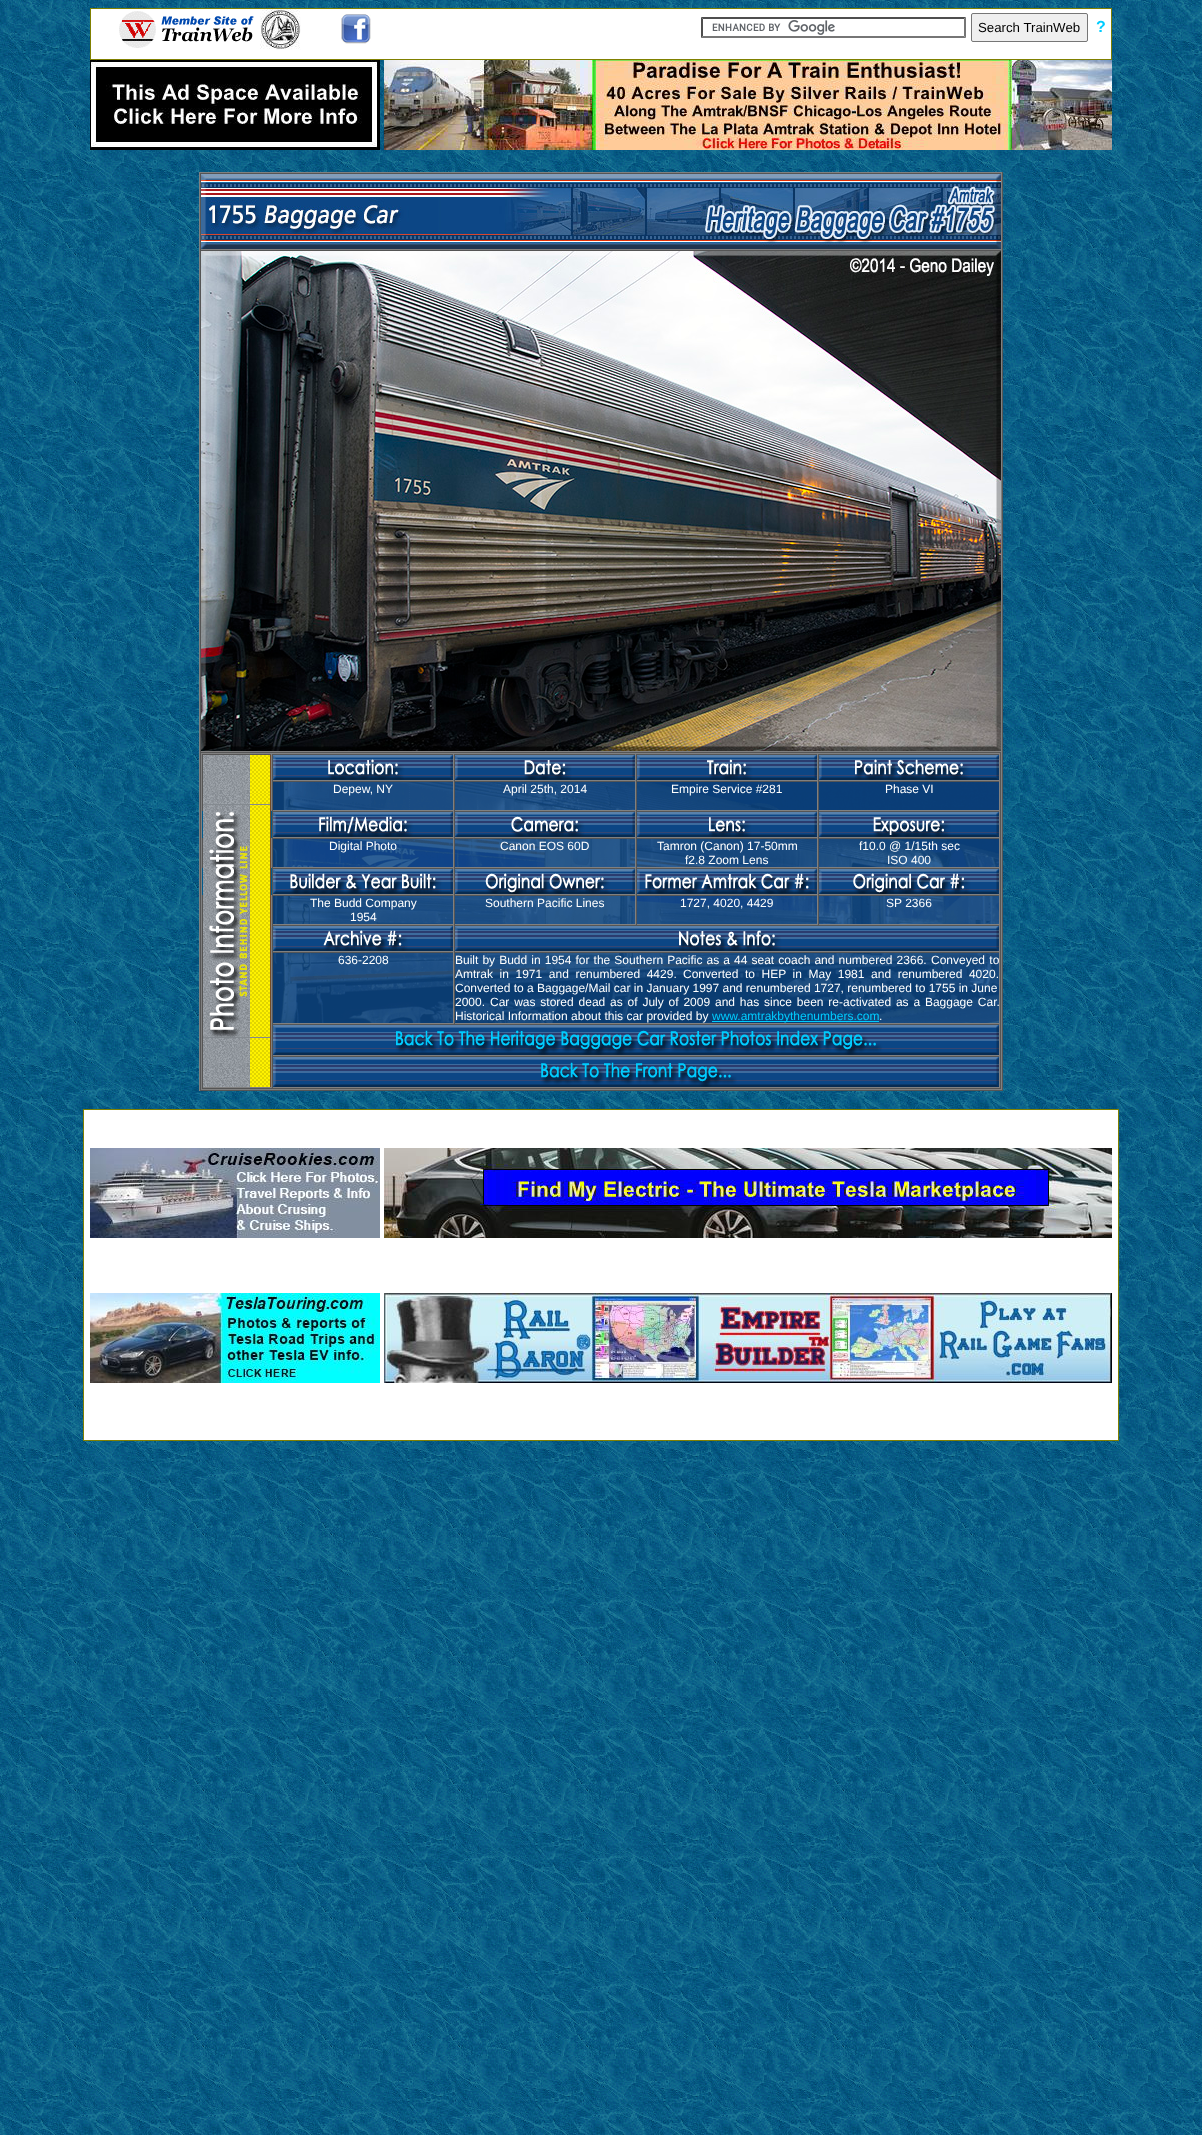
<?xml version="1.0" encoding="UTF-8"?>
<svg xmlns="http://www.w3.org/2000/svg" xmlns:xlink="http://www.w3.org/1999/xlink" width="1202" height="2135">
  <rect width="100%" height="100%" fill="#ffffff" />
  <image x="0" y="0" width="1202" height="2135" xlink:href="image1.png" />
  <rect x="90.5" y="8.5" width="1021" height="51" fill="#ffffff" stroke="#808000" />
  <image x="119" y="11" width="135" height="37" xlink:href="image2.png" />
  <image x="260" y="9" width="41" height="41" xlink:href="image3.png" />
  <image x="341" y="14" width="30" height="30" xlink:href="image4.png" />
  <image x="712" y="20" width="123" height="15" xlink:href="image5.png" />
  <path d="M 701 17 h 265 l -2 2 h -261 z" fill="#4f4f4f" />
  <path d="M 966 17 v 21 l -2 -2 v -17 z" fill="#767676" />
  <path d="M 966 38 h -265 l 2 -2 h 261 z" fill="#767676" />
  <path d="M 701 38 v -21 l 2 2 v 17 z" fill="#4f4f4f" />
  <rect x="971.5" y="13.5" width="116" height="28" rx="1.5" fill="#efefef" stroke="#767676" />
  <image x="90" y="60" width="290" height="90" xlink:href="image6.png" />
  <image x="384" y="60" width="728" height="90" xlink:href="image7.png" />
  <rect x="199" y="172" width="804" height="1" fill="#808080" />
  <rect x="1002" y="172" width="1" height="919" fill="#555555" />
  <rect x="199" y="1090" width="804" height="1" fill="#555555" />
  <rect x="199" y="172" width="1" height="919" fill="#808080" />
  <rect x="200" y="173" width="802" height="1" fill="#555555" />
  <rect x="1001" y="173" width="1" height="77" fill="#808080" />
  <rect x="200" y="249" width="802" height="1" fill="#808080" />
  <rect x="200" y="173" width="1" height="77" fill="#555555" />
  <image x="201" y="174" width="800" height="75" xlink:href="image8.png" />
  <rect x="200" y="250" width="802" height="1" fill="#555555" />
  <rect x="1001" y="250" width="1" height="502" fill="#808080" />
  <rect x="200" y="751" width="802" height="1" fill="#808080" />
  <rect x="200" y="250" width="1" height="502" fill="#555555" />
  <image x="201" y="251" width="800" height="500" xlink:href="image9.png" />
  <image x="273" y="782" width="726" height="241" xlink:href="image10.png" />
  <rect x="200" y="752" width="802" height="1" fill="#555555" />
  <rect x="1001" y="752" width="1" height="338" fill="#808080" />
  <rect x="200" y="1089" width="802" height="1" fill="#808080" />
  <rect x="200" y="752" width="1" height="338" fill="#555555" />
  <rect x="201" y="753" width="800" height="1" fill="#808080" />
  <rect x="1000" y="753" width="1" height="336" fill="#555555" />
  <rect x="201" y="1088" width="800" height="1" fill="#555555" />
  <rect x="201" y="753" width="1" height="336" fill="#808080" />
  <image x="203" y="755" width="68" height="332" xlink:href="image11.png" />
  <rect x="202" y="754" width="798" height="1" fill="#555555" />
  <rect x="271" y="754" width="1" height="334" fill="#808080" />
  <rect x="202" y="1087" width="70" height="1" fill="#808080" />
  <rect x="202" y="754" width="1" height="334" fill="#555555" />
  <rect x="202" y="811" width="70" height="27" fill="#005a8c" />
  <rect x="202" y="868" width="70" height="27" fill="#005a8c" />
  <image x="203" y="804" width="68" height="234" xlink:href="image12.png" />
  <rect x="453" y="754" width="1" height="27" fill="#808080" />
  <rect x="272" y="780" width="182" height="1" fill="#808080" />
  <rect x="272" y="754" width="1" height="27" fill="#555555" />
  <image x="273" y="755" width="180" height="25" xlink:href="image13.png" />
  <rect x="635" y="754" width="1" height="27" fill="#808080" />
  <rect x="454" y="780" width="182" height="1" fill="#808080" />
  <rect x="454" y="754" width="1" height="27" fill="#555555" />
  <image x="455" y="755" width="180" height="25" xlink:href="image14.png" />
  <rect x="817" y="754" width="1" height="27" fill="#808080" />
  <rect x="636" y="780" width="182" height="1" fill="#808080" />
  <rect x="636" y="754" width="1" height="27" fill="#555555" />
  <image x="637" y="755" width="180" height="25" xlink:href="image15.png" />
  <rect x="999" y="754" width="1" height="27" fill="#808080" />
  <rect x="818" y="780" width="182" height="1" fill="#808080" />
  <rect x="818" y="754" width="1" height="27" fill="#555555" />
  <image x="819" y="755" width="180" height="25" xlink:href="image16.png" />
  <rect x="272" y="781" width="728" height="1" fill="#555555" />
  <rect x="453" y="781" width="1" height="30" fill="#808080" />
  <rect x="272" y="810" width="182" height="1" fill="#808080" />
  <rect x="272" y="781" width="1" height="30" fill="#555555" />
  <rect x="635" y="781" width="1" height="30" fill="#808080" />
  <rect x="454" y="810" width="182" height="1" fill="#808080" />
  <rect x="454" y="781" width="1" height="30" fill="#555555" />
  <rect x="817" y="781" width="1" height="30" fill="#808080" />
  <rect x="636" y="810" width="182" height="1" fill="#808080" />
  <rect x="636" y="781" width="1" height="30" fill="#555555" />
  <rect x="999" y="781" width="1" height="30" fill="#808080" />
  <rect x="818" y="810" width="182" height="1" fill="#808080" />
  <rect x="818" y="781" width="1" height="30" fill="#555555" />
  <rect x="272" y="811" width="728" height="1" fill="#555555" />
  <rect x="453" y="811" width="1" height="27" fill="#808080" />
  <rect x="272" y="837" width="182" height="1" fill="#808080" />
  <rect x="272" y="811" width="1" height="27" fill="#555555" />
  <image x="273" y="812" width="180" height="25" xlink:href="image17.png" />
  <rect x="635" y="811" width="1" height="27" fill="#808080" />
  <rect x="454" y="837" width="182" height="1" fill="#808080" />
  <rect x="454" y="811" width="1" height="27" fill="#555555" />
  <image x="455" y="812" width="180" height="25" xlink:href="image18.png" />
  <rect x="817" y="811" width="1" height="27" fill="#808080" />
  <rect x="636" y="837" width="182" height="1" fill="#808080" />
  <rect x="636" y="811" width="1" height="27" fill="#555555" />
  <image x="637" y="812" width="180" height="25" xlink:href="image19.png" />
  <rect x="999" y="811" width="1" height="27" fill="#808080" />
  <rect x="818" y="837" width="182" height="1" fill="#808080" />
  <rect x="818" y="811" width="1" height="27" fill="#555555" />
  <image x="819" y="812" width="180" height="25" xlink:href="image20.png" />
  <rect x="272" y="838" width="728" height="1" fill="#555555" />
  <rect x="453" y="838" width="1" height="30" fill="#808080" />
  <rect x="272" y="867" width="182" height="1" fill="#808080" />
  <rect x="272" y="838" width="1" height="30" fill="#555555" />
  <rect x="635" y="838" width="1" height="30" fill="#808080" />
  <rect x="454" y="867" width="182" height="1" fill="#808080" />
  <rect x="454" y="838" width="1" height="30" fill="#555555" />
  <rect x="817" y="838" width="1" height="30" fill="#808080" />
  <rect x="636" y="867" width="182" height="1" fill="#808080" />
  <rect x="636" y="838" width="1" height="30" fill="#555555" />
  <rect x="999" y="838" width="1" height="30" fill="#808080" />
  <rect x="818" y="867" width="182" height="1" fill="#808080" />
  <rect x="818" y="838" width="1" height="30" fill="#555555" />
  <rect x="272" y="868" width="728" height="1" fill="#555555" />
  <rect x="453" y="868" width="1" height="27" fill="#808080" />
  <rect x="272" y="894" width="182" height="1" fill="#808080" />
  <rect x="272" y="868" width="1" height="27" fill="#555555" />
  <image x="273" y="869" width="180" height="25" xlink:href="image21.png" />
  <rect x="635" y="868" width="1" height="27" fill="#808080" />
  <rect x="454" y="894" width="182" height="1" fill="#808080" />
  <rect x="454" y="868" width="1" height="27" fill="#555555" />
  <image x="455" y="869" width="180" height="25" xlink:href="image22.png" />
  <rect x="817" y="868" width="1" height="27" fill="#808080" />
  <rect x="636" y="894" width="182" height="1" fill="#808080" />
  <rect x="636" y="868" width="1" height="27" fill="#555555" />
  <image x="637" y="869" width="180" height="25" xlink:href="image23.png" />
  <rect x="999" y="868" width="1" height="27" fill="#808080" />
  <rect x="818" y="894" width="182" height="1" fill="#808080" />
  <rect x="818" y="868" width="1" height="27" fill="#555555" />
  <image x="819" y="869" width="180" height="25" xlink:href="image24.png" />
  <rect x="272" y="895" width="728" height="1" fill="#555555" />
  <rect x="453" y="895" width="1" height="30" fill="#808080" />
  <rect x="272" y="924" width="182" height="1" fill="#808080" />
  <rect x="272" y="895" width="1" height="30" fill="#555555" />
  <rect x="635" y="895" width="1" height="30" fill="#808080" />
  <rect x="454" y="924" width="182" height="1" fill="#808080" />
  <rect x="454" y="895" width="1" height="30" fill="#555555" />
  <rect x="817" y="895" width="1" height="30" fill="#808080" />
  <rect x="636" y="924" width="182" height="1" fill="#808080" />
  <rect x="636" y="895" width="1" height="30" fill="#555555" />
  <rect x="999" y="895" width="1" height="30" fill="#808080" />
  <rect x="818" y="924" width="182" height="1" fill="#808080" />
  <rect x="818" y="895" width="1" height="30" fill="#555555" />
  <rect x="272" y="925" width="728" height="1" fill="#555555" />
  <rect x="453" y="925" width="1" height="27" fill="#808080" />
  <rect x="272" y="951" width="182" height="1" fill="#808080" />
  <rect x="272" y="925" width="1" height="27" fill="#555555" />
  <image x="273" y="926" width="180" height="25" xlink:href="image25.png" />
  <rect x="999" y="925" width="1" height="27" fill="#808080" />
  <rect x="454" y="951" width="546" height="1" fill="#808080" />
  <rect x="454" y="925" width="1" height="27" fill="#555555" />
  <image x="455" y="926" width="544" height="25" xlink:href="image26.png" />
  <rect x="272" y="952" width="728" height="1" fill="#555555" />
  <rect x="453" y="952" width="1" height="72" fill="#808080" />
  <rect x="272" y="1023" width="182" height="1" fill="#808080" />
  <rect x="272" y="952" width="1" height="72" fill="#555555" />
  <rect x="999" y="952" width="1" height="72" fill="#808080" />
  <rect x="454" y="1023" width="546" height="1" fill="#808080" />
  <rect x="454" y="952" width="1" height="72" fill="#555555" />
  <rect x="712" y="1021" width="167" height="1" fill="#00ccff" />
  <rect x="272" y="1024" width="728" height="1" fill="#555555" />
  <rect x="999" y="1024" width="1" height="32" fill="#808080" />
  <rect x="272" y="1055" width="728" height="1" fill="#808080" />
  <rect x="272" y="1024" width="1" height="32" fill="#555555" />
  <image x="273" y="1025" width="726" height="30" xlink:href="image27.png" />
  <rect x="272" y="1056" width="728" height="1" fill="#555555" />
  <rect x="999" y="1056" width="1" height="32" fill="#808080" />
  <rect x="272" y="1087" width="728" height="1" fill="#808080" />
  <rect x="272" y="1056" width="1" height="32" fill="#555555" />
  <image x="273" y="1057" width="726" height="30" xlink:href="image28.png" />
  <rect x="83.5" y="1109.5" width="1035" height="331" fill="#ffffff" stroke="#808000" />
  <image x="90" y="1148" width="290" height="90" xlink:href="image29.png" />
  <image x="384" y="1148" width="728" height="90" xlink:href="image30.png" />
  <image x="90" y="1293" width="290" height="90" xlink:href="image31.png" />
  <image x="384" y="1293" width="728" height="90" xlink:href="image32.png" />
  <text x="978" y="32" style="font-family: Liberation Sans; font-size: 13.25px; fill: #000000">Search TrainWeb</text>
  <text x="1096" y="32" style="font-family: Liberation Sans; font-size: 16px; font-weight: bold; fill: #00ccff">?</text>
  <text x="333" y="793" style="font-family: Liberation Sans; font-size: 12px; fill: #ffffff">Depew, NY</text>
  <text x="503" y="793" style="font-family: Liberation Sans; font-size: 12px; fill: #ffffff">April 25th, 2014</text>
  <text x="671" y="793" style="font-family: Liberation Sans; font-size: 12px; fill: #ffffff">Empire Service #281</text>
  <text x="885" y="793" style="font-family: Liberation Sans; font-size: 12px; fill: #ffffff">Phase VI</text>
  <text x="329" y="850" style="font-family: Liberation Sans; font-size: 12px; fill: #ffffff">Digital Photo</text>
  <text x="500" y="850" style="font-family: Liberation Sans; font-size: 12px; fill: #ffffff">Canon EOS 60D</text>
  <text x="657" y="850" style="font-family: Liberation Sans; font-size: 12px; fill: #ffffff">Tamron (Canon) 17-50mm</text>
  <text x="685" y="864" style="font-family: Liberation Sans; font-size: 12px; fill: #ffffff">f2.8 Zoom Lens</text>
  <text x="859" y="850" style="font-family: Liberation Sans; font-size: 12px; fill: #ffffff">f10.0 @ 1/15th sec</text>
  <text x="887" y="864" style="font-family: Liberation Sans; font-size: 12px; fill: #ffffff">ISO 400</text>
  <text x="310" y="907" style="font-family: Liberation Sans; font-size: 12px; fill: #ffffff">The Budd Company</text>
  <text x="350" y="921" style="font-family: Liberation Sans; font-size: 12px; fill: #ffffff">1954</text>
  <text x="485" y="907" style="font-family: Liberation Sans; font-size: 12px; fill: #ffffff">Southern Pacific Lines</text>
  <text x="680" y="907" style="font-family: Liberation Sans; font-size: 12px; fill: #ffffff">1727, 4020, 4429</text>
  <text x="886" y="907" style="font-family: Liberation Sans; font-size: 12px; fill: #ffffff">SP 2366</text>
  <text x="338" y="964" style="font-family: Liberation Sans; font-size: 12px; fill: #ffffff">636-2208</text>
  <text x="455" y="964" word-spacing="0.75" style="font-family: Liberation Sans; font-size: 12px; fill: #ffffff">Built by Budd in 1954 for the Southern Pacific as a 44 seat coach and numbered 2366.</text>
  <text x="931" y="964" word-spacing="1" style="font-family: Liberation Sans; font-size: 12px; fill: #ffffff">Conveyed to</text>
  <text x="455" y="978" word-spacing="3.25" style="font-family: Liberation Sans; font-size: 12px; fill: #ffffff">Amtrak in 1971 and renumbered 4429.</text>
  <text x="683" y="978" word-spacing="3.25" style="font-family: Liberation Sans; font-size: 12px; fill: #ffffff">Converted to HEP in May 1981 and renumbered 4020.</text>
  <text x="455" y="992" style="font-family: Liberation Sans; font-size: 12px; fill: #ffffff">Converted to a Baggage/Mail car in January 1997 and renumbered 1727, renumbered to 1755 in June</text>
  <text x="455" y="1006" style="font-family: Liberation Sans; font-size: 12px; fill: #ffffff">2000.</text>
  <text x="490" y="1006" word-spacing="1.5" style="font-family: Liberation Sans; font-size: 12px; fill: #ffffff">Car was stored dead as of July of 2009 and has since been re-activated as a Baggage Car.</text>
  <text x="455" y="1020" style="font-family: Liberation Sans; font-size: 12px; fill: #ffffff">Historical Information about this car provided by</text>
  <text x="712" y="1020" style="font-family: Liberation Sans; font-size: 12px; fill: #00ccff">www.amtrakbythenumbers.com</text>
  <text x="879" y="1020" style="font-family: Liberation Sans; font-size: 12px; fill: #ffffff">.</text>
</svg>
